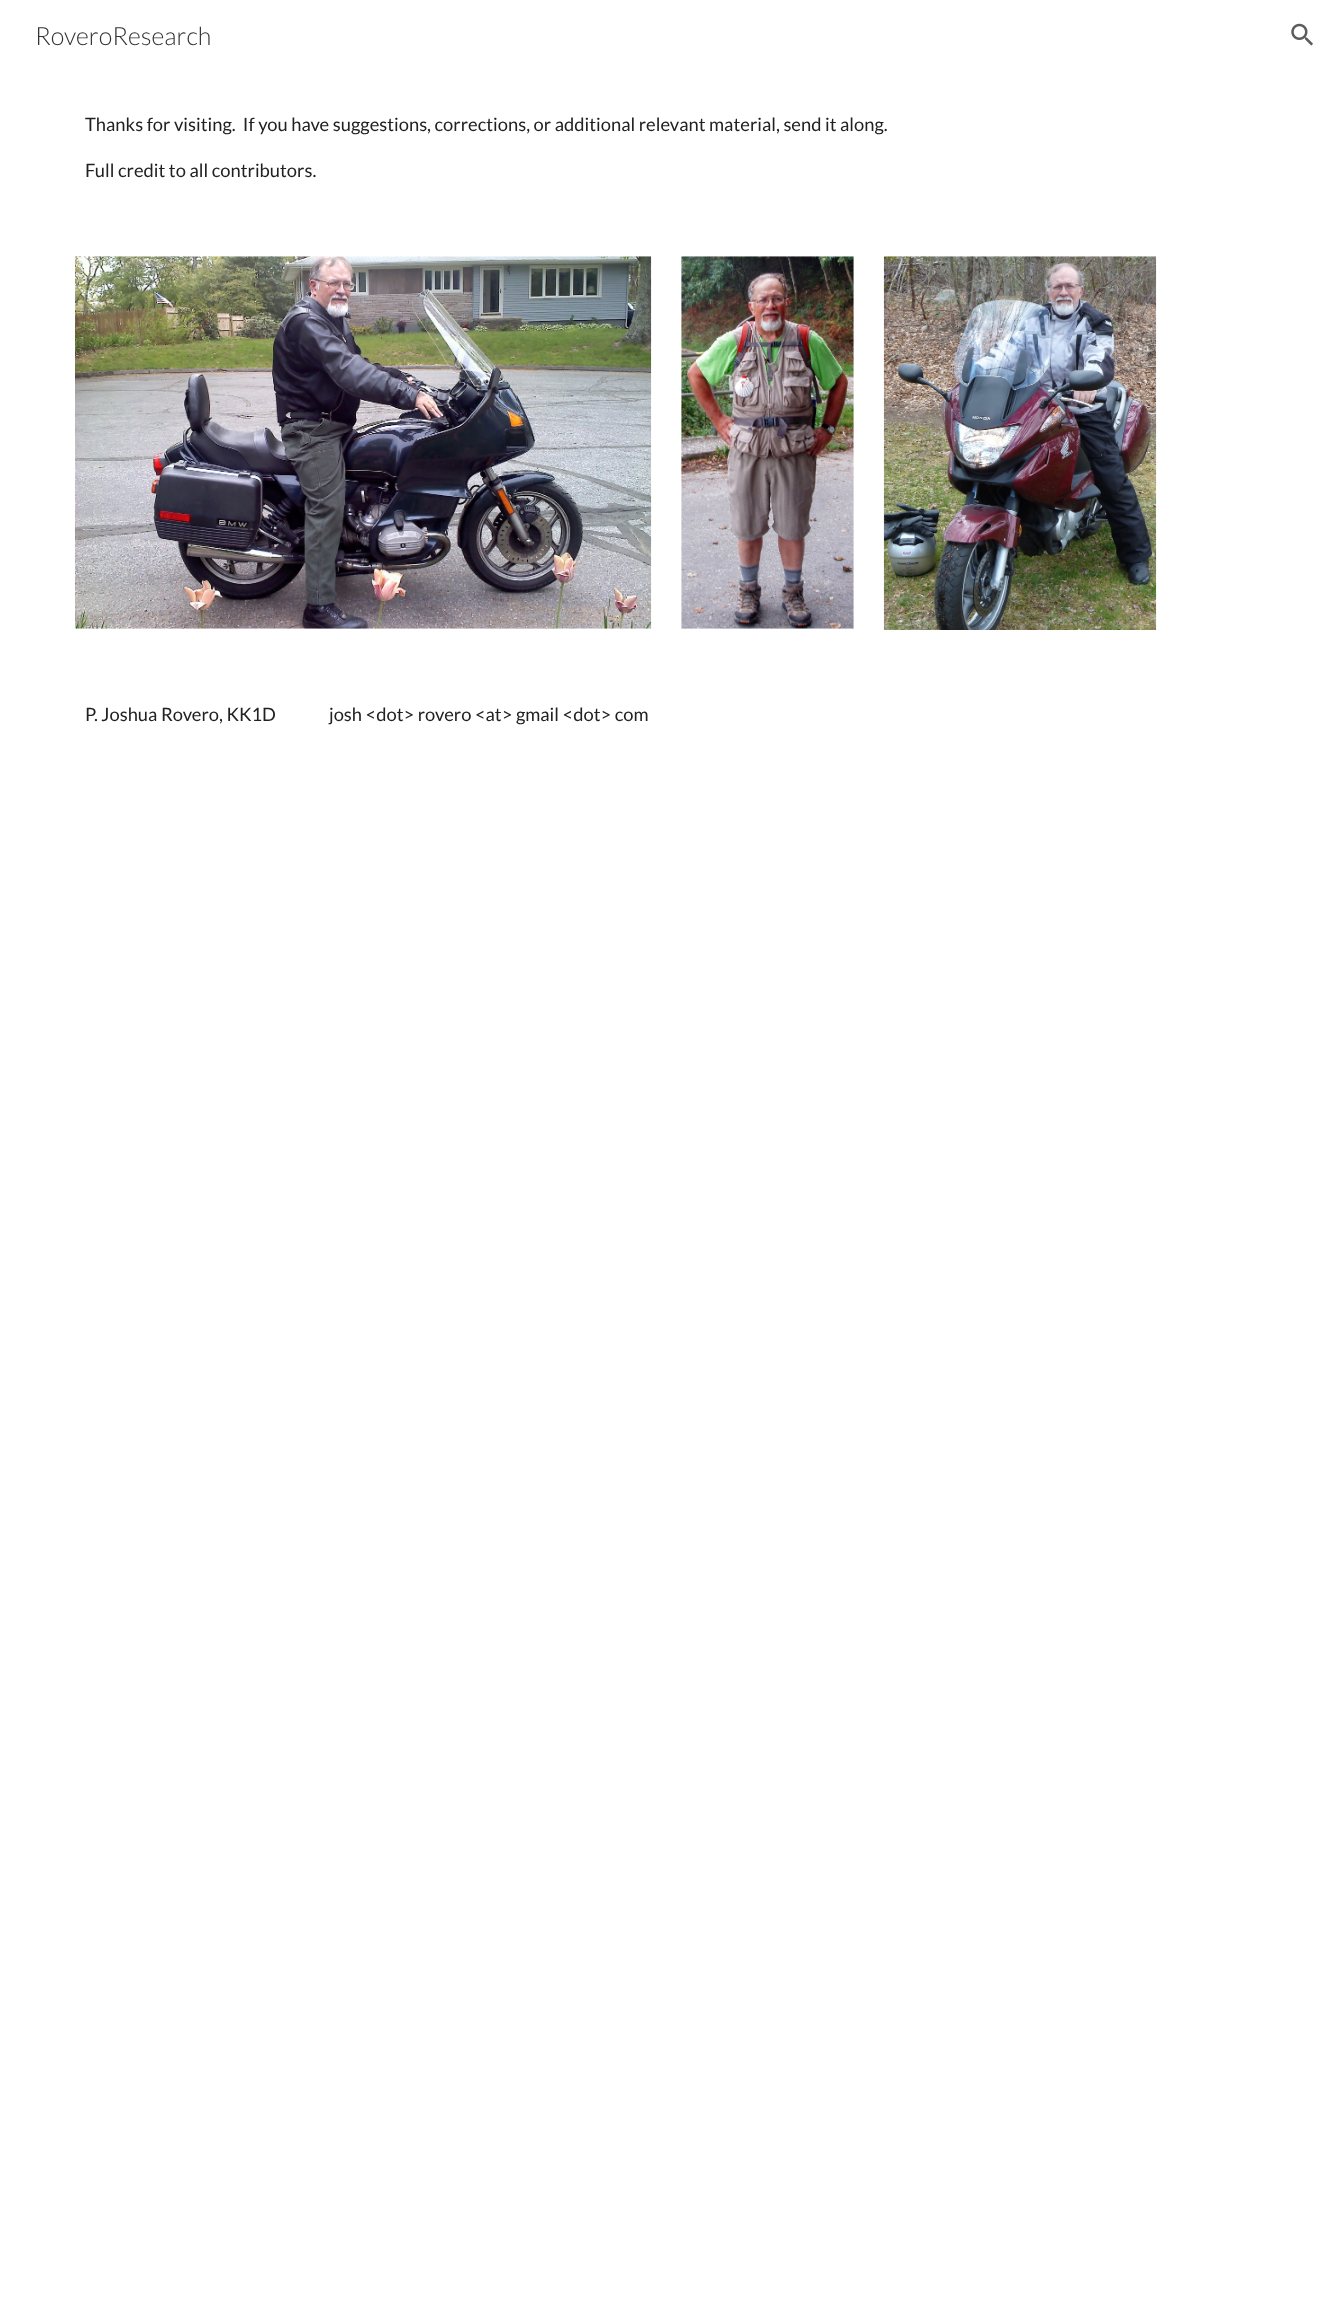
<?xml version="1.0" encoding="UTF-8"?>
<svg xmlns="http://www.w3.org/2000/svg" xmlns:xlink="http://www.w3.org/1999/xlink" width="1332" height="2297">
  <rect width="100%" height="100%" fill="#ffffff" />
  <image x="1291" y="23" width="22" height="23" xlink:href="image1.png" />
  <image x="75" y="256" width="577" height="373" xlink:href="image2.png" />
  <image x="681" y="256" width="173" height="373" xlink:href="image3.png" />
  <image x="883" y="256" width="274" height="374" xlink:href="image4.png" />
  <text x="35" y="45" style="font-family: Lato; font-size: 25px; font-weight: 300; fill: #333333">RoveroResearch</text>
  <text x="85" y="131" style="font-family: Lato; font-size: 18.35px; fill: #212121" xml:space="preserve">Thanks for visiting.  If you have suggestions, corrections, or additional relevant material, send it along.</text>
  <text x="85" y="177" style="font-family: Lato; font-size: 18.35px; fill: #212121">Full credit to all contributors.</text>
  <text x="85" y="721" style="font-family: Lato; font-size: 18.35px; fill: #212121">P. Joshua Rovero, KK1D</text>
  <text x="329" y="721" style="font-family: Lato; font-size: 18.35px; fill: #212121">josh &lt;dot&gt; rovero &lt;at&gt; gmail &lt;dot&gt; com</text>
</svg>
